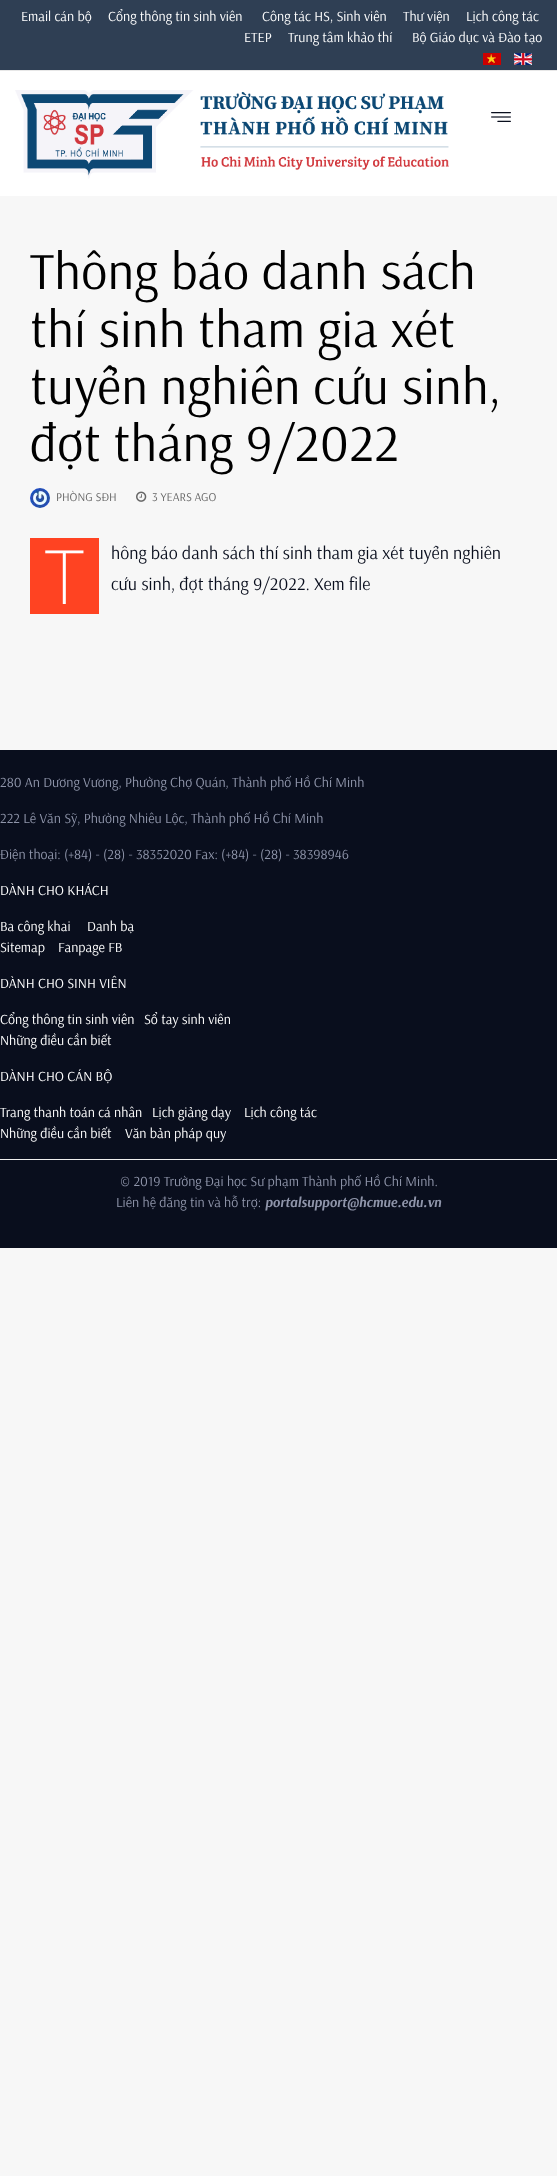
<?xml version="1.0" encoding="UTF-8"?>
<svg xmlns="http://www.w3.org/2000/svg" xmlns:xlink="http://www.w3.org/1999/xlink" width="557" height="2176">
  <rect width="100%" height="100%" fill="#f7f7f7" />
  <rect width="557" height="70" fill="#2f3f54" />
  <rect y="70" width="557" height="1" fill="#e7e7e7" />
  <image x="483" y="53" width="18" height="12" xlink:href="image1.png" />
  <image x="514" y="53" width="18" height="12" xlink:href="image2.png" />
  <rect y="71" width="557" height="125" fill="#ffffff" />
  <image x="15" y="90" width="434" height="89" xlink:href="image3.png" />
  <image x="491" y="112" width="20" height="10" xlink:href="image4.png" />
  <image x="30" y="488" width="20" height="20" xlink:href="image5.png" />
  <image x="136" y="491" width="11" height="11" xlink:href="image6.png" />
  <rect x="30" y="538" width="69" height="76" fill="#ff4322" />
  <rect y="750" width="557" height="498" fill="#090e1d" />
  <rect y="1159" width="557" height="1" fill="#eeeeee" />
  <text x="21" y="21" style="font-family: Arsenal; font-size: 14px; fill: #ffffff">Email cán bộ</text>
  <text x="108" y="21" style="font-family: Arsenal; font-size: 14px; fill: #ffffff">Cổng thông tin sinh viên</text>
  <text x="262" y="21" style="font-family: Arsenal; font-size: 14px; fill: #ffffff">Công tác HS, Sinh viên</text>
  <text x="403" y="21" style="font-family: Arsenal; font-size: 14px; fill: #ffffff">Thư viện</text>
  <text x="466" y="21" style="font-family: Arsenal; font-size: 14px; fill: #ffffff">Lịch công tác</text>
  <text x="244" y="42" style="font-family: Arsenal; font-size: 14px; fill: #ffffff">ETEP</text>
  <text x="288" y="42" style="font-family: Arsenal; font-size: 14px; fill: #ffffff">Trung tâm khảo thí</text>
  <text x="412" y="42" style="font-family: Arsenal; font-size: 14px; fill: #ffffff">Bộ Giáo dục và Đào tạo</text>
  <text x="30" y="289" style="font-family: Arsenal; font-size: 52px; letter-spacing: 0.3px; fill: #000000">Thông báo danh sách</text>
  <text x="30" y="347" style="font-family: Arsenal; font-size: 52px; letter-spacing: 0.3px; fill: #000000">thí sinh tham gia xét</text>
  <text x="30" y="404" style="font-family: Arsenal; font-size: 52px; letter-spacing: 0.3px; fill: #000000">tuyển nghiên cứu sinh,</text>
  <text x="30" y="461" style="font-family: Arsenal; font-size: 52px; letter-spacing: 0.3px; fill: #000000">đợt tháng 9/2022</text>
  <text x="56" y="501" style="font-family: Arsenal; font-size: 12px; fill: #666666">PHÒNG SĐH</text>
  <text x="152" y="501" style="font-family: Arsenal; font-size: 12px; fill: #666666">3 YEARS AGO</text>
  <text x="45" y="604" style="font-family: Noto Sans; font-size: 75px; font-weight: 200; fill: #ffffff">T</text>
  <text x="111" y="559" style="font-family: Arsenal; font-size: 18px; fill: #090e1d">hông báo danh sách thí sinh tham gia xét tuyển nghiên</text>
  <text x="111" y="590" style="font-family: Arsenal; font-size: 18px; fill: #090e1d">cứu sinh, đợt tháng 9/2022. Xem file</text>
  <text x="0" y="787" style="font-family: Arsenal; font-size: 14px; fill: #8f95aa">280 An Dương Vương, Phường Chợ Quán, Thành phố Hồ Chí Minh</text>
  <text x="0" y="823" style="font-family: Arsenal; font-size: 14px; fill: #8f95aa">222 Lê Văn Sỹ, Phường Nhiêu Lộc, Thành phố Hồ Chí Minh</text>
  <text x="0" y="859" style="font-family: Arsenal; font-size: 14px; fill: #8f95aa">Điện thoại: (+84) - (28) - 38352020 Fax: (+84) - (28) - 38398946</text>
  <text x="0" y="895" style="font-family: Arsenal; font-size: 14px; fill: #ffffff">DÀNH CHO KHÁCH</text>
  <text x="0" y="931" style="font-family: Arsenal; font-size: 14px; fill: #ffffff">Ba công khai</text>
  <text x="87" y="931" style="font-family: Arsenal; font-size: 14px; fill: #ffffff">Danh bạ</text>
  <text x="0" y="952" style="font-family: Arsenal; font-size: 14px; fill: #ffffff">Sitemap</text>
  <text x="58" y="952" style="font-family: Arsenal; font-size: 14px; fill: #ffffff">Fanpage FB</text>
  <text x="0" y="988" style="font-family: Arsenal; font-size: 14px; fill: #ffffff">DÀNH CHO SINH VIÊN</text>
  <text x="0" y="1024" style="font-family: Arsenal; font-size: 14px; fill: #ffffff">Cổng thông tin sinh viên</text>
  <text x="144" y="1024" style="font-family: Arsenal; font-size: 14px; fill: #ffffff">Sổ tay sinh viên</text>
  <text x="0" y="1045" style="font-family: Arsenal; font-size: 14px; fill: #ffffff">Những điều cần biết</text>
  <text x="0" y="1081" style="font-family: Arsenal; font-size: 14px; fill: #ffffff">DÀNH CHO CÁN BỘ</text>
  <text x="0" y="1117" style="font-family: Arsenal; font-size: 14px; fill: #ffffff">Trang thanh toán cá nhân</text>
  <text x="152" y="1117" style="font-family: Arsenal; font-size: 14px; fill: #ffffff">Lịch giảng dạy</text>
  <text x="244" y="1117" style="font-family: Arsenal; font-size: 14px; fill: #ffffff">Lịch công tác</text>
  <text x="0" y="1138" style="font-family: Arsenal; font-size: 14px; fill: #ffffff">Những điều cần biết</text>
  <text x="125" y="1138" style="font-family: Arsenal; font-size: 14px; fill: #ffffff">Văn bản pháp quy</text>
  <text x="120" y="1186" style="font-family: Arsenal; font-size: 14px; fill: #8f95aa">© 2019 Trường Đại học Sư phạm Thành phố Hồ Chí Minh.</text>
  <text x="116" y="1207" style="font-family: Arsenal; font-size: 14px; fill: #8f95aa">Liên hệ đăng tin và hỗ trợ:</text>
  <text x="265" y="1207" style="font-family: Arsenal; font-size: 14px; font-weight: bold; font-style: italic; fill: #8f95aa">portalsupport@hcmue.edu.vn</text>
</svg>
